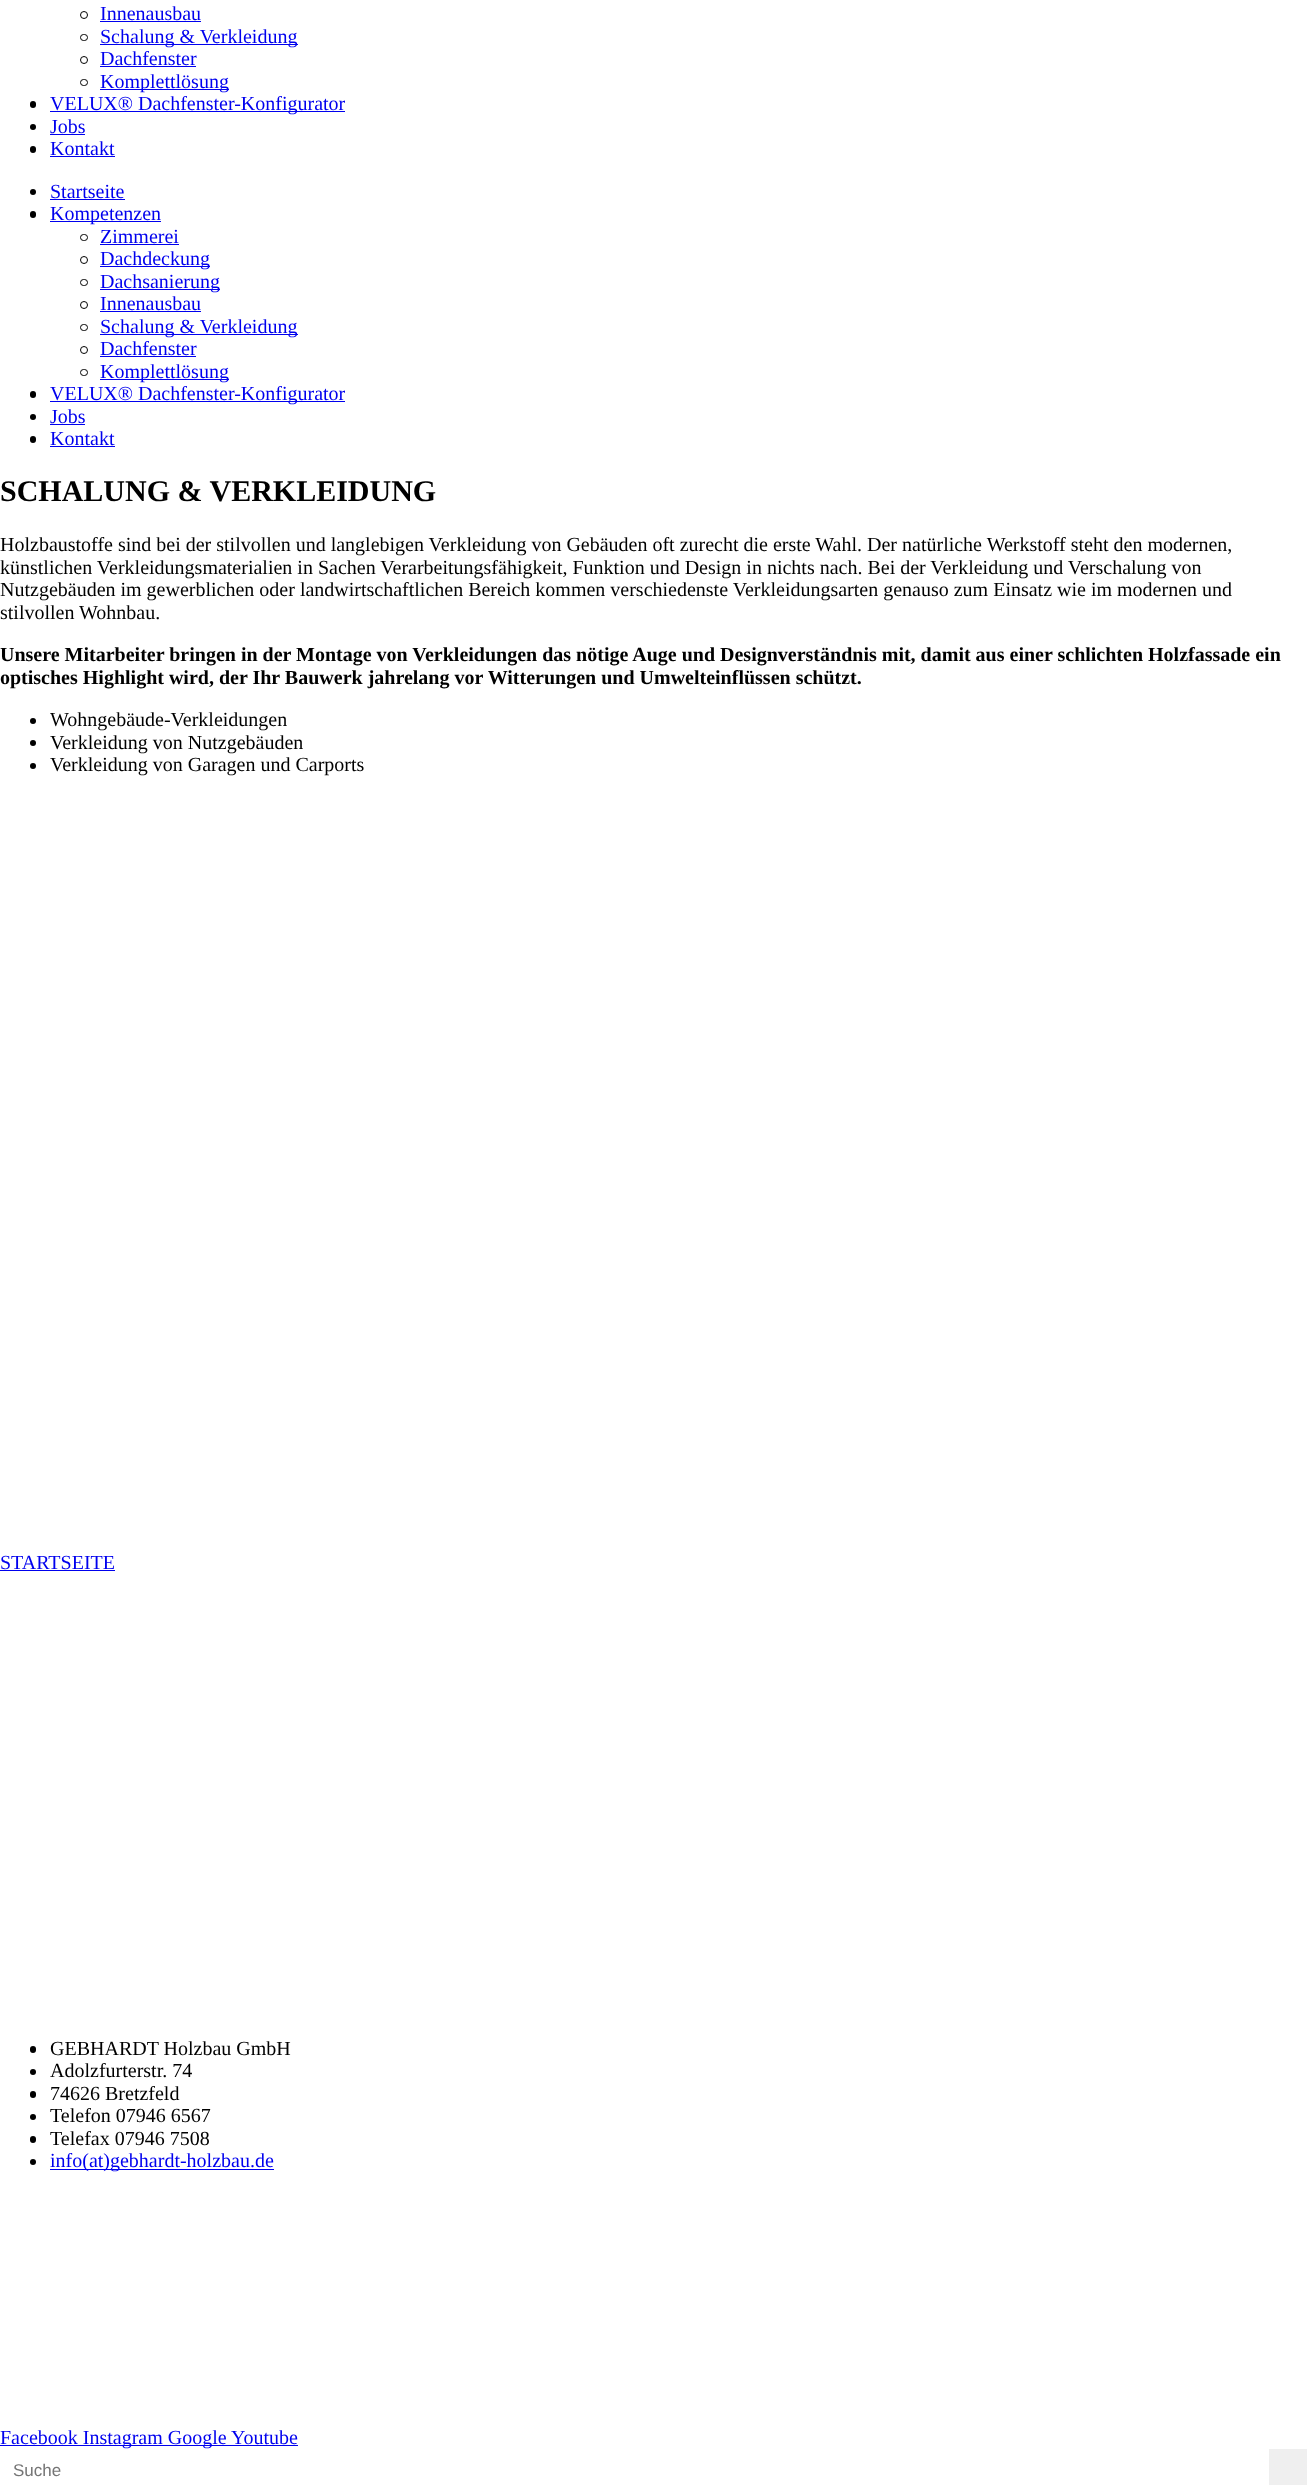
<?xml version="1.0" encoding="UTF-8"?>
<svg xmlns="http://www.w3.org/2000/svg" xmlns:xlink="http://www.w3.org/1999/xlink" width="1307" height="2485">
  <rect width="100%" height="100%" fill="#ffffff" />
  <circle cx="84" cy="15" r="3.5" fill="none" stroke="#000000" />
  <rect x="100" y="21" width="101" height="1" fill="#0000ee" />
  <rect x="80.5" y="34.5" width="7" height="6" rx="3" fill="none" stroke="#000000" />
  <rect x="100" y="44" width="198" height="1" fill="#0000ee" />
  <circle cx="84" cy="60" r="3.5" fill="none" stroke="#000000" />
  <rect x="100" y="66" width="96" height="1" fill="#0000ee" />
  <rect x="80.5" y="79.5" width="7" height="6" rx="3" fill="none" stroke="#000000" />
  <rect x="100" y="89" width="129" height="1" fill="#0000ee" />
  <rect x="30" y="101" width="6" height="7" rx="3" fill="#000000" />
  <rect x="50" y="111" width="295" height="1" fill="#0000ee" />
  <circle cx="33" cy="127" r="3" fill="#000000" />
  <rect x="50" y="134" width="35" height="1" fill="#0000ee" />
  <rect x="30" y="146" width="6" height="7" rx="3" fill="#000000" />
  <rect x="50" y="156" width="65" height="1" fill="#0000ee" />
  <circle cx="33" cy="192" r="3" fill="#000000" />
  <rect x="50" y="199" width="75" height="1" fill="#0000ee" />
  <rect x="30" y="211" width="6" height="7" rx="3" fill="#000000" />
  <rect x="50" y="221" width="111" height="1" fill="#0000ee" />
  <rect x="80.5" y="234.5" width="7" height="6" rx="3" fill="none" stroke="#000000" />
  <rect x="100" y="244" width="79" height="1" fill="#0000ee" />
  <circle cx="84" cy="260" r="3.5" fill="none" stroke="#000000" />
  <rect x="100" y="266" width="110" height="1" fill="#0000ee" />
  <rect x="80.5" y="279.5" width="7" height="6" rx="3" fill="none" stroke="#000000" />
  <rect x="100" y="289" width="120" height="1" fill="#0000ee" />
  <circle cx="84" cy="305" r="3.5" fill="none" stroke="#000000" />
  <rect x="100" y="311" width="101" height="1" fill="#0000ee" />
  <rect x="80.5" y="324.5" width="7" height="6" rx="3" fill="none" stroke="#000000" />
  <rect x="100" y="334" width="198" height="1" fill="#0000ee" />
  <circle cx="84" cy="350" r="3.5" fill="none" stroke="#000000" />
  <rect x="100" y="356" width="96" height="1" fill="#0000ee" />
  <rect x="80.5" y="369.5" width="7" height="6" rx="3" fill="none" stroke="#000000" />
  <rect x="100" y="379" width="129" height="1" fill="#0000ee" />
  <rect x="30" y="391" width="6" height="7" rx="3" fill="#000000" />
  <rect x="50" y="401" width="295" height="1" fill="#0000ee" />
  <circle cx="33" cy="417" r="3" fill="#000000" />
  <rect x="50" y="424" width="35" height="1" fill="#0000ee" />
  <rect x="30" y="436" width="6" height="7" rx="3" fill="#000000" />
  <rect x="50" y="446" width="65" height="1" fill="#0000ee" />
  <circle cx="33" cy="721" r="3" fill="#000000" />
  <circle cx="33" cy="743" r="3" fill="#000000" />
  <circle cx="33" cy="766" r="3" fill="#000000" />
  <rect y="1570" width="115" height="1" fill="#0000ee" />
  <rect x="30" y="2046" width="6" height="7" rx="3" fill="#000000" />
  <circle cx="33" cy="2072" r="3" fill="#000000" />
  <rect x="30" y="2091" width="6" height="7" rx="3" fill="#000000" />
  <circle cx="33" cy="2117" r="3" fill="#000000" />
  <rect x="30" y="2136" width="6" height="7" rx="3" fill="#000000" />
  <circle cx="33" cy="2162" r="3" fill="#000000" />
  <rect x="50" y="2169" width="224" height="1" fill="#0000ee" />
  <rect y="2445" width="298" height="1" fill="#0000ee" />
  <rect x="1269" y="2449" width="38" height="36" fill="#efefef" />
  <text x="100" y="20" style="font-family: Liberation Serif; font-size: 20px; fill: #0000ee">Innenausbau</text>
  <text x="100" y="43" style="font-family: Liberation Serif; font-size: 20px; fill: #0000ee">Schalung &amp; Verkleidung</text>
  <text x="100" y="65" style="font-family: Liberation Serif; font-size: 20px; fill: #0000ee">Dachfenster</text>
  <text x="100" y="88" style="font-family: Liberation Serif; font-size: 20px; fill: #0000ee">Komplettlösung</text>
  <text x="50" y="110" style="font-family: Liberation Serif; font-size: 20px; fill: #0000ee">VELUX® Dachfenster-Konfigurator</text>
  <text x="50" y="133" style="font-family: Liberation Serif; font-size: 20px; fill: #0000ee">Jobs</text>
  <text x="50" y="155" style="font-family: Liberation Serif; font-size: 20px; fill: #0000ee">Kontakt</text>
  <text x="50" y="198" style="font-family: Liberation Serif; font-size: 20px; fill: #0000ee">Startseite</text>
  <text x="50" y="220" style="font-family: Liberation Serif; font-size: 20px; fill: #0000ee">Kompetenzen</text>
  <text x="100" y="243" style="font-family: Liberation Serif; font-size: 20px; fill: #0000ee">Zimmerei</text>
  <text x="100" y="265" style="font-family: Liberation Serif; font-size: 20px; fill: #0000ee">Dachdeckung</text>
  <text x="100" y="288" style="font-family: Liberation Serif; font-size: 20px; fill: #0000ee">Dachsanierung</text>
  <text x="100" y="310" style="font-family: Liberation Serif; font-size: 20px; fill: #0000ee">Innenausbau</text>
  <text x="100" y="333" style="font-family: Liberation Serif; font-size: 20px; fill: #0000ee">Schalung &amp; Verkleidung</text>
  <text x="100" y="355" style="font-family: Liberation Serif; font-size: 20px; fill: #0000ee">Dachfenster</text>
  <text x="100" y="378" style="font-family: Liberation Serif; font-size: 20px; fill: #0000ee">Komplettlösung</text>
  <text x="50" y="400" style="font-family: Liberation Serif; font-size: 20px; fill: #0000ee">VELUX® Dachfenster-Konfigurator</text>
  <text x="50" y="423" style="font-family: Liberation Serif; font-size: 20px; fill: #0000ee">Jobs</text>
  <text x="50" y="445" style="font-family: Liberation Serif; font-size: 20px; fill: #0000ee">Kontakt</text>
  <text x="0" y="501" style="font-family: Liberation Serif; font-size: 30px; font-weight: bold; fill: #000000">SCHALUNG &amp; VERKLEIDUNG</text>
  <text x="0" y="551" style="font-family: Liberation Serif; font-size: 20px; fill: #000000">Holzbaustoffe sind bei der stilvollen und langlebigen Verkleidung von Gebäuden oft zurecht die erste Wahl. Der natürliche Werkstoff steht den modernen,</text>
  <text x="0" y="574" style="font-family: Liberation Serif; font-size: 20px; fill: #000000">künstlichen Verkleidungsmaterialien in Sachen Verarbeitungsfähigkeit, Funktion und Design in nichts nach. Bei der Verkleidung und Verschalung von</text>
  <text x="0" y="596" style="font-family: Liberation Serif; font-size: 20px; fill: #000000">Nutzgebäuden im gewerblichen oder landwirtschaftlichen Bereich kommen verschiedenste Verkleidungsarten genauso zum Einsatz wie im modernen und</text>
  <text x="0" y="619" style="font-family: Liberation Serif; font-size: 20px; fill: #000000">stilvollen Wohnbau.</text>
  <text x="0" y="661" style="font-family: Liberation Serif; font-size: 20px; font-weight: bold; fill: #000000">Unsere Mitarbeiter bringen in der Montage von Verkleidungen das nötige Auge und Designverständnis mit, damit aus einer schlichten Holzfassade ein</text>
  <text x="0" y="684" style="font-family: Liberation Serif; font-size: 20px; font-weight: bold; fill: #000000">optisches Highlight wird, der Ihr Bauwerk jahrelang vor Witterungen und Umwelteinflüssen schützt.</text>
  <text x="50" y="726" style="font-family: Liberation Serif; font-size: 20px; fill: #000000">Wohngebäude-Verkleidungen</text>
  <text x="50" y="749" style="font-family: Liberation Serif; font-size: 20px; fill: #000000">Verkleidung von Nutzgebäuden</text>
  <text x="50" y="771" style="font-family: Liberation Serif; font-size: 20px; fill: #000000">Verkleidung von Garagen und Carports</text>
  <text x="0" y="1569" style="font-family: Liberation Serif; font-size: 20px; fill: #0000ee">STARTSEITE</text>
  <text x="50" y="2055" style="font-family: Liberation Serif; font-size: 20px; fill: #000000">GEBHARDT Holzbau GmbH</text>
  <text x="50" y="2077" style="font-family: Liberation Serif; font-size: 20px; fill: #000000">Adolzfurterstr. 74</text>
  <text x="50" y="2100" style="font-family: Liberation Serif; font-size: 20px; fill: #000000">74626 Bretzfeld</text>
  <text x="50" y="2122" style="font-family: Liberation Serif; font-size: 20px; fill: #000000">Telefon 07946 6567</text>
  <text x="50" y="2145" style="font-family: Liberation Serif; font-size: 20px; fill: #000000">Telefax 07946 7508</text>
  <text x="50" y="2167" style="font-family: Liberation Serif; font-size: 20px; fill: #0000ee">info(at)gebhardt-holzbau.de</text>
  <text x="0" y="2444" style="font-family: Liberation Serif; font-size: 20px; fill: #0000ee">Facebook Instagram Google</text>
  <text x="231" y="2444" style="font-family: Liberation Serif; font-size: 20px; fill: #0000ee">Youtube</text>
  <text x="13" y="2476" style="font-family: Liberation Sans; font-size: 17px; fill: #757575">Suche</text>
</svg>
